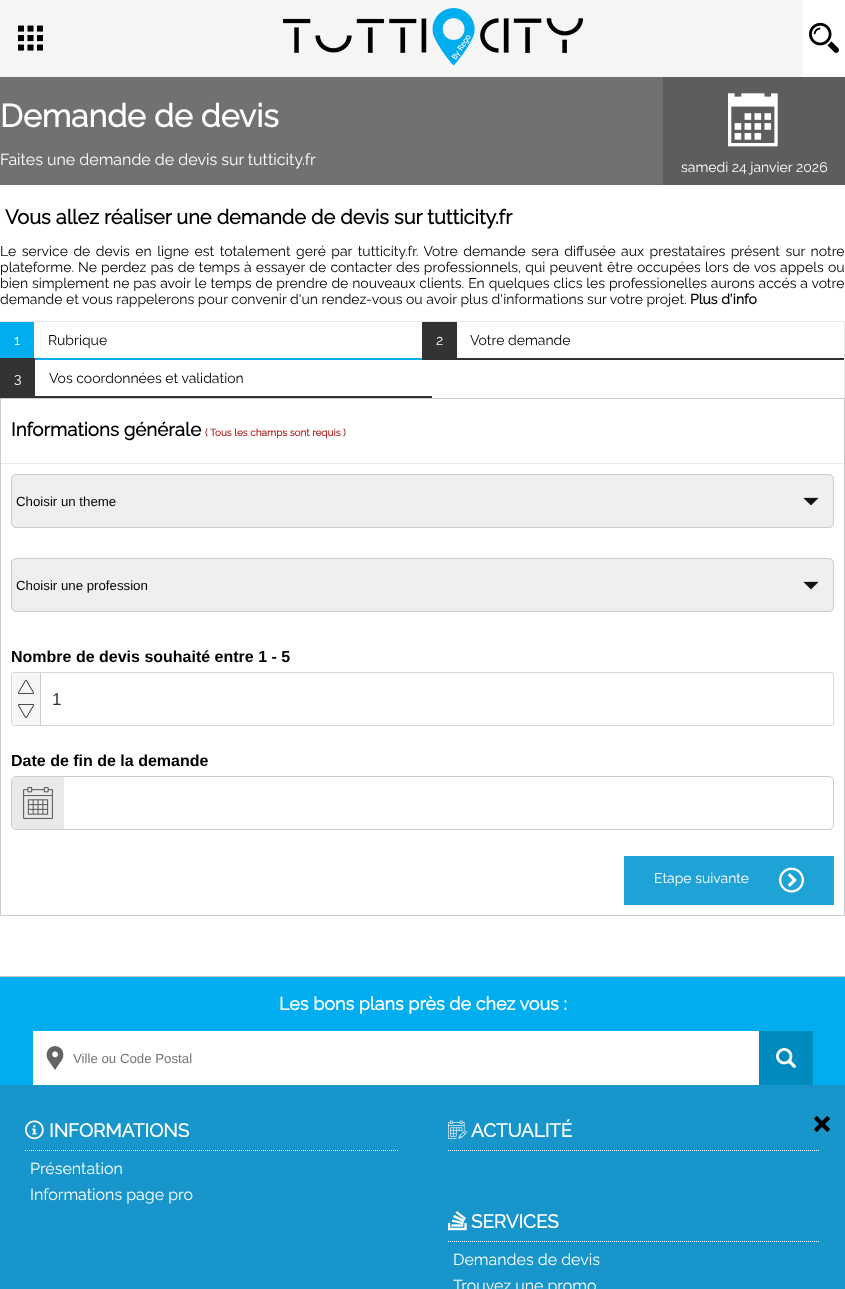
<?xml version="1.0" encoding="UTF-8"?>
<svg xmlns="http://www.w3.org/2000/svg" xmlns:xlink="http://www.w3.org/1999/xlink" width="845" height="1289">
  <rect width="100%" height="100%" fill="#ffffff" />
  <rect width="803" height="77" fill="#f5f5f5" />
  <image x="18" y="25" width="25" height="26" xlink:href="image1.png" />
  <image x="283" y="8" width="300" height="57" xlink:href="image2.png" />
  <image x="809" y="22" width="30" height="31" xlink:href="image3.png" />
  <rect y="77" width="663" height="108" fill="#717171" />
  <rect x="663" y="77" width="182" height="108" fill="#5d5d5d" />
  <image x="728" y="93" width="50" height="54" xlink:href="image4.png" />
  <rect y="321" width="845" height="1" fill="#e7e7e7" />
  <rect x="844" y="321" width="1" height="77" fill="#e7e7e7" />
  <rect x="35" y="358" width="387" height="2" fill="#00aeef" />
  <rect y="322" width="34" height="36" fill="#00aeef" />
  <rect x="457" y="358" width="387" height="2" fill="#333333" />
  <rect x="422" y="322" width="35" height="38" fill="#333333" />
  <rect x="35" y="396" width="397" height="2" fill="#333333" />
  <rect y="358" width="35" height="40" fill="#333333" />
  <rect x="0.5" y="398.5" width="844" height="517" fill="none" stroke="#cccccc" />
  <rect x="1" y="463" width="843" height="1" fill="#e7e7e7" />
  <rect x="11" y="474" width="823" height="54" rx="5" fill="#efefef" />
  <image x="803" y="497" width="16" height="9" xlink:href="image5.png" />
  <rect x="11.5" y="474.5" width="822" height="53" rx="4.5" fill="none" stroke="#cccccc" />
  <rect x="11" y="558" width="823" height="54" rx="5" fill="#efefef" />
  <image x="803" y="581" width="16" height="9" xlink:href="image5.png" />
  <rect x="11.5" y="558.5" width="822" height="53" rx="4.5" fill="none" stroke="#cccccc" />
  <rect x="11.5" y="672.5" width="822" height="53" rx="2.5" fill="none" stroke="#d8d8d8" />
  <path d="M 14 673 h 27 v 28 h -29 v -26 c 0 -1 1 -2 2 -2 z" fill="#f6f6f6" />
  <image x="18" y="680" width="16" height="14" xlink:href="image6.png" />
  <rect x="40" y="673" width="1" height="28" fill="#cccccc" />
  <path d="M 12 697 h 29 v 28 h -27 c -1 0 -2 -1 -2 -2 z" fill="#f6f6f6" />
  <image x="18" y="704" width="16" height="14" xlink:href="image7.png" />
  <rect x="40" y="697" width="1" height="28" fill="#cccccc" />
  <rect x="11.5" y="776.5" width="822" height="53" rx="4.5" fill="none" stroke="#cccccc" />
  <path d="M 17 777 h 47 v 52 h -47 c -3 0 -5 -2 -5 -5 v -42 c 0 -3 2 -5 5 -5 z" fill="#e9e9e9" />
  <image x="23" y="787" width="30" height="32" xlink:href="image8.png" />
  <rect x="624" y="856" width="210" height="49" fill="#1fa3d7" />
  <image x="779" y="867" width="25" height="26" xlink:href="image9.png" />
  <rect y="977" width="845" height="108" fill="#00aeef" />
  <rect y="976" width="845" height="1" fill="#c2c2c2" />
  <rect x="33" y="1031" width="726" height="54" fill="#ffffff" />
  <image x="46" y="1046" width="18" height="24" xlink:href="image10.png" />
  <rect x="759" y="1031" width="54" height="54" fill="#008bbf" />
  <image x="776" y="1048" width="20" height="20" xlink:href="image11.png" />
  <rect y="1085" width="845" height="204" fill="#1896cb" />
  <path d="M 25 1150.5 h 373" fill="none" stroke="#ffffff" stroke-dasharray="1 1" />
  <image x="25" y="1120" width="19" height="20" xlink:href="image12.png" />
  <path d="M 448 1150.5 h 372" fill="none" stroke="#ffffff" stroke-dasharray="1 1" />
  <image x="448" y="1120" width="19" height="19" xlink:href="image13.png" />
  <path d="M 448 1241.5 h 372" fill="none" stroke="#ffffff" stroke-dasharray="1 1" />
  <image x="448" y="1211" width="19" height="20" xlink:href="image14.png" />
  <image x="814" y="1116" width="16" height="16" xlink:href="image15.png" />
  <text x="0" y="127" style="font-family: Raleway; font-size: 32px; font-weight: bold; fill: #ffffff">Demande de devis</text>
  <text x="0" y="165" style="font-family: Raleway; font-size: 16px; font-weight: 100; fill: #ffffff">Faites une demande de devis sur tutticity.fr</text>
  <text x="681" y="172" style="font-family: Raleway; font-size: 14px; font-weight: 100; fill: #ffffff">samedi 24 janvier 2026</text>
  <text x="5" y="224" style="font-family: Raleway; font-size: 20px; font-weight: bold; fill: #000000">Vous allez réaliser une demande de devis sur tutticity.fr</text>
  <text x="0" y="256" word-spacing="1.9" style="font-family: Raleway; font-size: 14px; font-weight: 100; fill: #000000">Le service de devis en ligne est totalement geré par tutticity.fr. Votre demande sera diffusée aux prestataires présent sur notre</text>
  <text x="0" y="272" style="font-family: Raleway; font-size: 14px; font-weight: 100; fill: #000000">plateforme.</text>
  <text x="78" y="272" word-spacing="0.6" style="font-family: Raleway; font-size: 14px; font-weight: 100; fill: #000000">Ne perdez pas de temps à essayer de contacter des professionnels, qui peuvent être occupées lors de vos appels ou</text>
  <text x="0" y="288" word-spacing="0.3" style="font-family: Raleway; font-size: 14px; font-weight: 100; fill: #000000">bien simplement</text>
  <text x="113" y="288" word-spacing="0.3" style="font-family: Raleway; font-size: 14px; font-weight: 100; fill: #000000">ne pas avoir le temps de prendre de nouveaux clients. En quelques clics les professionelles aurons accés a votre</text>
  <text x="0" y="304" style="font-family: Raleway; font-size: 14px; font-weight: 100; fill: #000000">demande et vous rappelerons pour convenir d'un rendez-vous ou avoir plus d'informations sur votre projet.</text>
  <text x="690" y="304" style="font-family: Raleway; font-size: 14px; font-weight: bold; fill: #000000">Plus d'info</text>
  <text x="14" y="345" style="font-family: Raleway; font-size: 14px; font-weight: 100; fill: #ffffff">1</text>
  <text x="48" y="345" style="font-family: Raleway; font-size: 14px; font-weight: 100; fill: #000000">Rubrique</text>
  <text x="436" y="345" style="font-family: Raleway; font-size: 14px; font-weight: 100; fill: #ffffff">2</text>
  <text x="470" y="345" style="font-family: Raleway; font-size: 14px; font-weight: 100; fill: #000000">Votre demande</text>
  <text x="14" y="383" style="font-family: Raleway; font-size: 14px; font-weight: 100; fill: #ffffff">3</text>
  <text x="49" y="383" style="font-family: Raleway; font-size: 14px; font-weight: 100; fill: #000000">Vos coordonnées et validation</text>
  <text x="11" y="436" style="font-family: Raleway; font-size: 18.75px; font-weight: bold; fill: #000000">Informations générale</text>
  <text x="205" y="436" style="font-family: Raleway; font-size: 10px; font-weight: bold; fill: #ac2925">( Tous les champs sont requis )</text>
  <text x="16" y="506" style="font-family: Liberation Sans; font-size: 13.25px; fill: #000000">Choisir un theme</text>
  <text x="16" y="590" style="font-family: Liberation Sans; font-size: 13.25px; fill: #000000">Choisir une profession</text>
  <text x="11" y="662" style="font-family: Liberation Sans; font-size: 16px; font-weight: bold; fill: #000000">Nombre de devis souhaité entre 1 - 5</text>
  <text x="52" y="705" style="font-family: Liberation Sans; font-size: 17px; fill: #333333">1</text>
  <text x="11" y="766" style="font-family: Liberation Sans; font-size: 16px; font-weight: bold; fill: #000000">Date de fin de la demande</text>
  <text x="654" y="883" style="font-family: Raleway; font-size: 14px; font-weight: 100; fill: #ffffff">Etape suivante</text>
  <text x="279" y="1010" style="font-family: Raleway; font-size: 18px; font-weight: bold; fill: #ffffff">Les bons plans près de chez vous :</text>
  <text x="73" y="1063" style="font-family: Liberation Sans; font-size: 13.25px; fill: #757575">Ville ou Code Postal</text>
  <text x="49" y="1137" style="font-family: Raleway; font-size: 18.75px; font-weight: bold; fill: #ffffff">INFORMATIONS</text>
  <text x="30" y="1174" style="font-family: Raleway; font-size: 16px; font-weight: 100; fill: #ffffff">Présentation</text>
  <text x="30" y="1200" style="font-family: Raleway; font-size: 16px; font-weight: 100; fill: #ffffff">Informations page pro</text>
  <text x="471" y="1137" style="font-family: Raleway; font-size: 18.75px; font-weight: bold; fill: #ffffff">ACTUALITÉ</text>
  <text x="471" y="1228" style="font-family: Raleway; font-size: 18.75px; font-weight: bold; fill: #ffffff">SERVICES</text>
  <text x="453" y="1265" style="font-family: Raleway; font-size: 16px; font-weight: 100; fill: #ffffff">Demandes de devis</text>
  <text x="453" y="1291" style="font-family: Raleway; font-size: 16px; font-weight: 100; fill: #ffffff">Trouvez une promo</text>
</svg>
